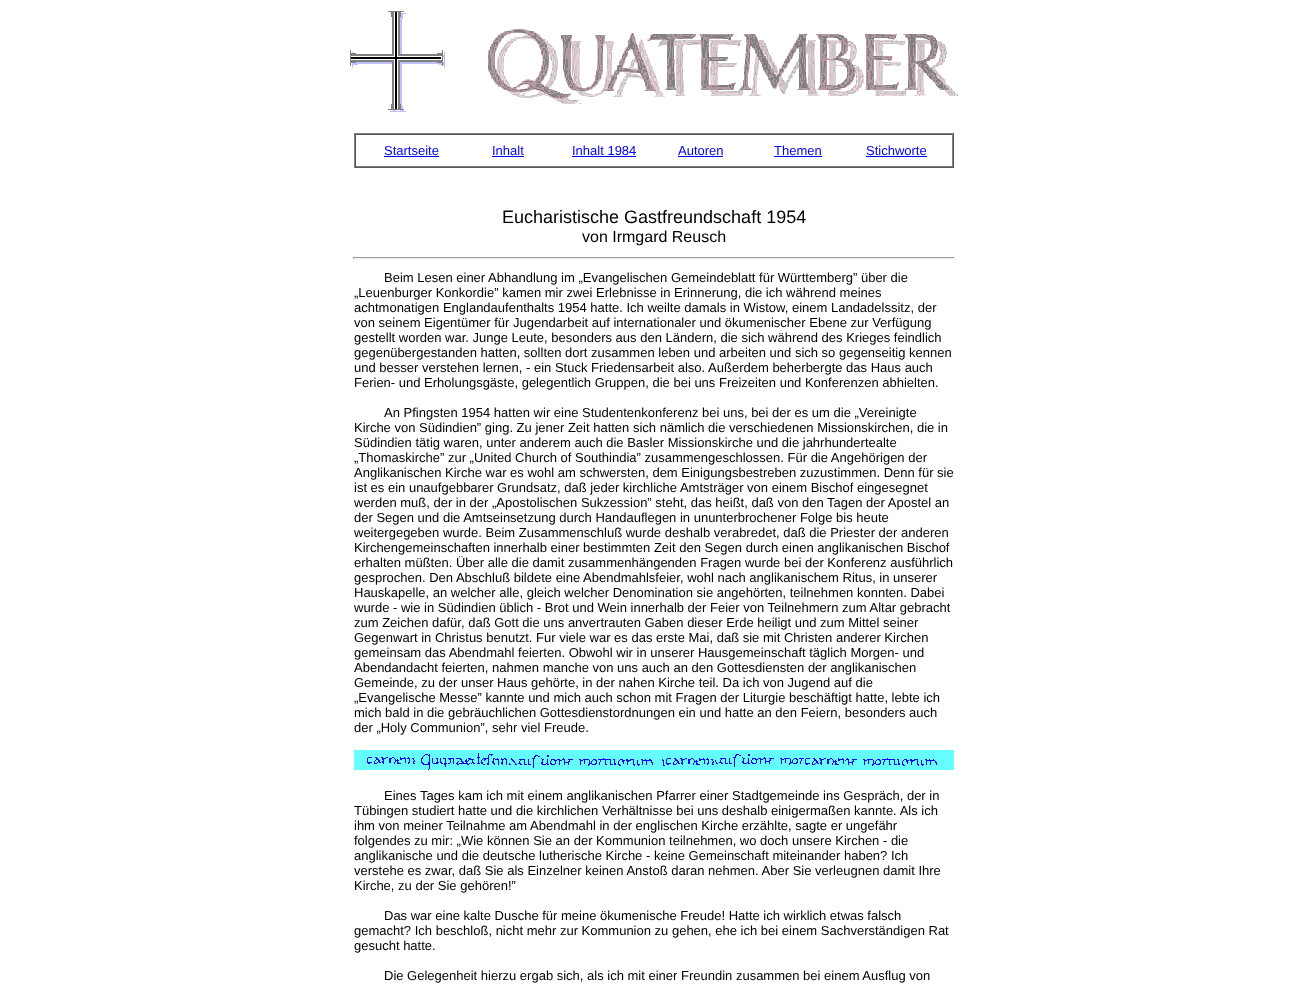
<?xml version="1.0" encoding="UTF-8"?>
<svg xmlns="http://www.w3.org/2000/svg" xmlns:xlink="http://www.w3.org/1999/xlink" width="1308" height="991">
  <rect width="100%" height="100%" fill="#ffffff" />
  <image x="350" y="11" width="95" height="101" xlink:href="image1.png" />
  <image x="488" y="29" width="470" height="75" xlink:href="image2.png" />
  <rect x="354" y="133" width="600" height="1" fill="#808080" />
  <rect x="953" y="133" width="1" height="35" fill="#555555" />
  <rect x="354" y="167" width="600" height="1" fill="#555555" />
  <rect x="354" y="133" width="1" height="35" fill="#808080" />
  <rect x="355" y="134" width="598" height="1" fill="#555555" />
  <rect x="952" y="134" width="1" height="33" fill="#808080" />
  <rect x="355" y="166" width="598" height="1" fill="#808080" />
  <rect x="355" y="134" width="1" height="33" fill="#555555" />
  <rect x="384" y="156" width="55" height="1" fill="#0000ee" />
  <rect x="492" y="156" width="32" height="1" fill="#0000ee" />
  <rect x="572" y="156" width="64" height="1" fill="#0000ee" />
  <rect x="678" y="156" width="45" height="1" fill="#0000ee" />
  <rect x="774" y="156" width="48" height="1" fill="#0000ee" />
  <rect x="866" y="156" width="61" height="1" fill="#0000ee" />
  <rect x="353" y="257" width="602" height="1" fill="#9f9f9f" />
  <rect x="954" y="257" width="1" height="2" fill="#eeeeee" />
  <rect x="353" y="258" width="602" height="1" fill="#eeeeee" />
  <rect x="353" y="257" width="1" height="2" fill="#9f9f9f" />
  <image x="354" y="750" width="600" height="20" xlink:href="image3.png" />
  <text x="384" y="155" style="font-family: Liberation Sans; font-size: 13px; fill: #0000ee">Startseite</text>
  <text x="492" y="155" style="font-family: Liberation Sans; font-size: 13px; fill: #0000ee">Inhalt</text>
  <text x="572" y="155" style="font-family: Liberation Sans; font-size: 13px; fill: #0000ee">Inhalt 1984</text>
  <text x="678" y="155" style="font-family: Liberation Sans; font-size: 13px; fill: #0000ee">Autoren</text>
  <text x="774" y="155" style="font-family: Liberation Sans; font-size: 13px; fill: #0000ee">Themen</text>
  <text x="866" y="155" style="font-family: Liberation Sans; font-size: 13px; fill: #0000ee">Stichworte</text>
  <text x="502" y="223" style="font-family: Liberation Sans; font-size: 18px; fill: #000000">Eucharistische Gastfreundschaft 1954</text>
  <text x="582" y="242" style="font-family: Liberation Sans; font-size: 16px; fill: #000000">von Irmgard Reusch</text>
  <text x="384" y="282" style="font-family: Liberation Sans; font-size: 13px; fill: #000000">Beim Lesen einer Abhandlung im „Evangelischen Gemeindeblatt für Württemberg” über die</text>
  <text x="354" y="297" style="font-family: Liberation Sans; font-size: 13px; fill: #000000">„Leuenburger Konkordie” kamen mir zwei Erlebnisse in Erinnerung, die ich während meines</text>
  <text x="354" y="312" style="font-family: Liberation Sans; font-size: 13px; fill: #000000">achtmonatigen Englandaufenthalts 1954 hatte. Ich weilte damals in Wistow, einem Landadelssitz, der</text>
  <text x="354" y="327" style="font-family: Liberation Sans; font-size: 13px; fill: #000000">von seinem Eigentümer für Jugendarbeit auf internationaler und ökumenischer Ebene zur Verfügung</text>
  <text x="354" y="342" style="font-family: Liberation Sans; font-size: 13px; fill: #000000">gestellt worden war. Junge Leute, besonders aus den Ländern, die sich während des Krieges feindlich</text>
  <text x="354" y="357" style="font-family: Liberation Sans; font-size: 13px; fill: #000000">gegenübergestanden hatten, sollten dort zusammen leben und arbeiten und sich so gegenseitig kennen</text>
  <text x="354" y="372" style="font-family: Liberation Sans; font-size: 13px; fill: #000000">und besser verstehen lernen, - ein Stuck Friedensarbeit also. Außerdem beherbergte das Haus auch</text>
  <text x="354" y="387" style="font-family: Liberation Sans; font-size: 13px; fill: #000000">Ferien- und Erholungsgäste, gelegentlich Gruppen, die bei uns Freizeiten und Konferenzen abhielten.</text>
  <text x="384" y="417" style="font-family: Liberation Sans; font-size: 13px; fill: #000000">An Pfingsten 1954 hatten wir eine Studentenkonferenz bei uns, bei der es um die „Vereinigte</text>
  <text x="354" y="432" style="font-family: Liberation Sans; font-size: 13px; fill: #000000">Kirche von Südindien” ging. Zu jener Zeit hatten sich nämlich die verschiedenen Missionskirchen, die in</text>
  <text x="354" y="447" style="font-family: Liberation Sans; font-size: 13px; fill: #000000">Südindien tätig waren, unter anderem auch die Basler Missionskirche und die jahrhundertealte</text>
  <text x="354" y="462" style="font-family: Liberation Sans; font-size: 13px; fill: #000000">„Thomaskirche” zur „United Church of Southindia” zusammengeschlossen. Für die Angehörigen der</text>
  <text x="354" y="477" style="font-family: Liberation Sans; font-size: 13px; fill: #000000">Anglikanischen Kirche war es wohl am schwersten, dem Einigungsbestreben zuzustimmen. Denn für sie</text>
  <text x="354" y="492" style="font-family: Liberation Sans; font-size: 13px; fill: #000000">ist es ein unaufgebbarer Grundsatz, daß jeder kirchliche Amtsträger von einem Bischof eingesegnet</text>
  <text x="354" y="507" style="font-family: Liberation Sans; font-size: 13px; fill: #000000">werden muß, der in der „Apostolischen Sukzession” steht, das heißt, daß von den Tagen der Apostel an</text>
  <text x="354" y="522" style="font-family: Liberation Sans; font-size: 13px; fill: #000000">der Segen und die Amtseinsetzung durch Handauflegen in ununterbrochener Folge bis heute</text>
  <text x="354" y="537" style="font-family: Liberation Sans; font-size: 13px; fill: #000000">weitergegeben wurde. Beim Zusammenschluß wurde deshalb verabredet, daß die Priester der anderen</text>
  <text x="354" y="552" style="font-family: Liberation Sans; font-size: 13px; fill: #000000">Kirchengemeinschaften innerhalb einer bestimmten Zeit den Segen durch einen anglikanischen Bischof</text>
  <text x="354" y="567" style="font-family: Liberation Sans; font-size: 13px; fill: #000000">erhalten müßten. Über alle die damit zusammenhängenden Fragen wurde bei der Konferenz ausführlich</text>
  <text x="354" y="582" style="font-family: Liberation Sans; font-size: 13px; fill: #000000">gesprochen. Den Abschluß bildete eine Abendmahlsfeier, wohl nach anglikanischem Ritus, in unserer</text>
  <text x="354" y="597" style="font-family: Liberation Sans; font-size: 13px; fill: #000000">Hauskapelle, an welcher alle, gleich welcher Denomination sie angehörten, teilnehmen konnten. Dabei</text>
  <text x="354" y="612" style="font-family: Liberation Sans; font-size: 13px; fill: #000000">wurde - wie in Südindien üblich - Brot und Wein innerhalb der Feier von Teilnehmern zum Altar gebracht</text>
  <text x="354" y="627" style="font-family: Liberation Sans; font-size: 13px; fill: #000000">zum Zeichen dafür, daß Gott die uns anvertrauten Gaben dieser Erde heiligt und zum Mittel seiner</text>
  <text x="354" y="642" style="font-family: Liberation Sans; font-size: 13px; fill: #000000">Gegenwart in Christus benutzt. Fur viele war es das erste Mai, daß sie mit Christen anderer Kirchen</text>
  <text x="354" y="657" style="font-family: Liberation Sans; font-size: 13px; fill: #000000">gemeinsam das Abendmahl feierten. Obwohl wir in unserer Hausgemeinschaft täglich Morgen- und</text>
  <text x="354" y="672" style="font-family: Liberation Sans; font-size: 13px; fill: #000000">Abendandacht feierten, nahmen manche von uns auch an den Gottesdiensten der anglikanischen</text>
  <text x="354" y="687" style="font-family: Liberation Sans; font-size: 13px; fill: #000000">Gemeinde, zu der unser Haus gehörte, in der nahen Kirche teil. Da ich von Jugend auf die</text>
  <text x="354" y="702" style="font-family: Liberation Sans; font-size: 13px; fill: #000000">„Evangelische Messe” kannte und mich auch schon mit Fragen der Liturgie beschäftigt hatte, lebte ich</text>
  <text x="354" y="717" style="font-family: Liberation Sans; font-size: 13px; fill: #000000">mich bald in die gebräuchlichen Gottesdienstordnungen ein und hatte an den Feiern, besonders auch</text>
  <text x="354" y="732" style="font-family: Liberation Sans; font-size: 13px; fill: #000000">der „Holy Communion”, sehr viel Freude.</text>
  <text x="384" y="800" style="font-family: Liberation Sans; font-size: 13px; fill: #000000">Eines Tages kam ich mit einem anglikanischen Pfarrer einer Stadtgemeinde ins Gespräch, der in</text>
  <text x="354" y="815" style="font-family: Liberation Sans; font-size: 13px; fill: #000000">Tübingen studiert hatte und die kirchlichen Verhältnisse bei uns deshalb einigermaßen kannte. Als ich</text>
  <text x="354" y="830" style="font-family: Liberation Sans; font-size: 13px; fill: #000000">ihm von meiner Teilnahme am Abendmahl in der englischen Kirche erzählte, sagte er ungefähr</text>
  <text x="354" y="845" style="font-family: Liberation Sans; font-size: 13px; fill: #000000">folgendes zu mir: „Wie können Sie an der Kommunion teilnehmen, wo doch unsere Kirchen - die</text>
  <text x="354" y="860" style="font-family: Liberation Sans; font-size: 13px; fill: #000000">anglikanische und die deutsche lutherische Kirche - keine Gemeinschaft miteinander haben? Ich</text>
  <text x="354" y="875" style="font-family: Liberation Sans; font-size: 13px; fill: #000000">verstehe es zwar, daß Sie als Einzelner keinen Anstoß daran nehmen. Aber Sie verleugnen damit Ihre</text>
  <text x="354" y="890" style="font-family: Liberation Sans; font-size: 13px; fill: #000000">Kirche, zu der Sie gehören!”</text>
  <text x="384" y="920" style="font-family: Liberation Sans; font-size: 13px; fill: #000000">Das war eine kalte Dusche für meine ökumenische Freude! Hatte ich wirklich etwas falsch</text>
  <text x="354" y="935" style="font-family: Liberation Sans; font-size: 13px; fill: #000000">gemacht? Ich beschloß, nicht mehr zur Kommunion zu gehen, ehe ich bei einem Sachverständigen Rat</text>
  <text x="354" y="950" style="font-family: Liberation Sans; font-size: 13px; fill: #000000">gesucht hatte.</text>
  <text x="384" y="980" style="font-family: Liberation Sans; font-size: 13px; fill: #000000">Die Gelegenheit hierzu ergab sich, als ich mit einer Freundin zusammen bei einem Ausflug von</text>
</svg>
